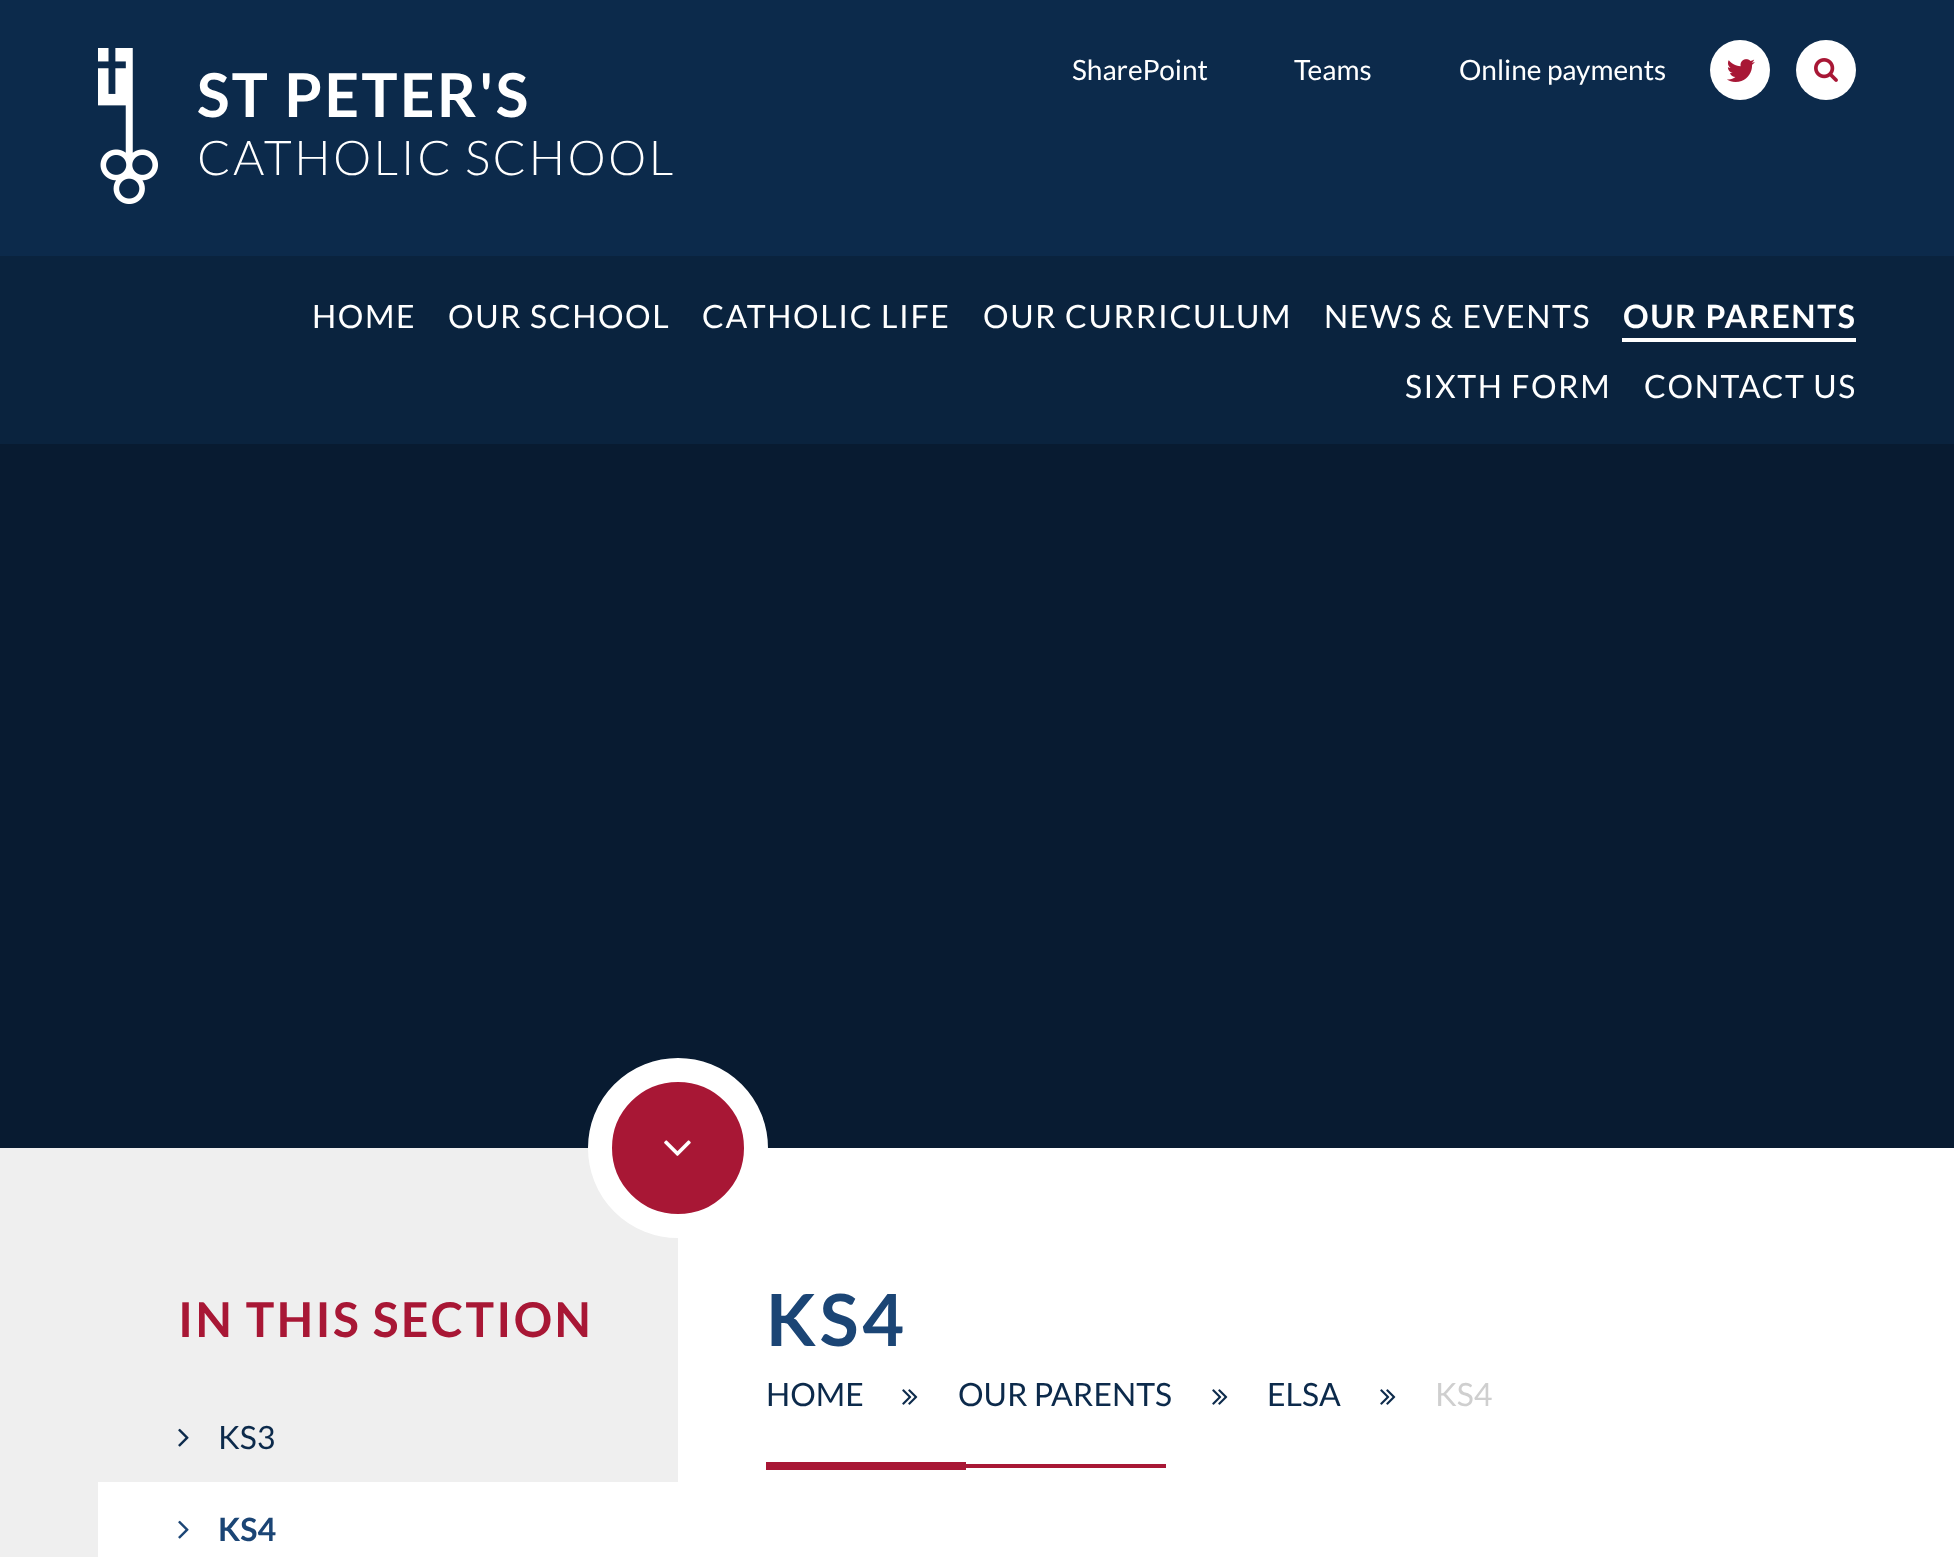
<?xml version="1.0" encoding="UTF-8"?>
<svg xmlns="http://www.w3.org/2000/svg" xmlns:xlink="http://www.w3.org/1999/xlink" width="1954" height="1557">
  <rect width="100%" height="100%" fill="#ffffff" />
  <rect width="1954" height="256" fill="#0c2a4b" />
  <circle cx="1740" cy="70" r="30" fill="#ffffff" />
  <image x="1727" y="59" width="28" height="23" xlink:href="image1.png" />
  <circle cx="1826" cy="70" r="30" fill="#ffffff" />
  <image x="1814" y="58" width="24" height="24" xlink:href="image2.png" />
  <rect y="256" width="1954" height="188" fill="#0a233e" />
  <rect x="1622" y="338" width="234" height="4" fill="#ffffff" />
  <image x="98" y="48" width="60" height="156" xlink:href="image3.png" />
  <rect y="444" width="1954" height="704" fill="#081b31" />
  <rect y="1148" width="678" height="409" fill="#efefef" />
  <circle cx="678" cy="1148" r="78" fill="#a81735" stroke="#ffffff" stroke-width="24" />
  <image x="664" y="1140" width="27" height="16" xlink:href="image4.png" />
  <image x="902" y="1389" width="16" height="16" xlink:href="image5.png" />
  <image x="1212" y="1389" width="16" height="16" xlink:href="image5.png" />
  <image x="1380" y="1389" width="16" height="16" xlink:href="image5.png" />
  <rect x="766" y="1462" width="200" height="8" fill="#a81735" />
  <rect x="966" y="1464" width="200" height="4" fill="#a81735" />
  <image x="178" y="1428" width="11" height="19" xlink:href="image6.png" />
  <rect x="98" y="1482" width="580" height="75" fill="#ffffff" />
  <image x="178" y="1520" width="11" height="19" xlink:href="image7.png" />
  <text x="1072" y="80" style="font-family: Lato; font-size: 28px; fill: #ffffff">SharePoint</text>
  <text x="1294" y="80" style="font-family: Lato; font-size: 28px; fill: #ffffff">Teams</text>
  <text x="1459" y="80" style="font-family: Lato; font-size: 28px; fill: #ffffff">Online payments</text>
  <text x="312" y="328" style="font-family: Lato; font-size: 32px; letter-spacing: 1.6px; fill: #ffffff">HOME</text>
  <text x="448" y="328" style="font-family: Lato; font-size: 32px; letter-spacing: 1.6px; fill: #ffffff">OUR SCHOOL</text>
  <text x="702" y="328" style="font-family: Lato; font-size: 32px; letter-spacing: 1.6px; fill: #ffffff">CATHOLIC LIFE</text>
  <text x="983" y="328" style="font-family: Lato; font-size: 32px; letter-spacing: 1.6px; fill: #ffffff">OUR CURRICULUM</text>
  <text x="1324" y="328" style="font-family: Lato; font-size: 32px; letter-spacing: 1.6px; fill: #ffffff">NEWS &amp; EVENTS</text>
  <text x="1623" y="328" style="font-family: Lato; font-size: 32px; font-weight: bold; letter-spacing: 1.6px; fill: #ffffff">OUR PARENTS</text>
  <text x="1405" y="398" style="font-family: Lato; font-size: 32px; letter-spacing: 1.6px; fill: #ffffff">SIXTH FORM</text>
  <text x="1644" y="398" style="font-family: Lato; font-size: 32px; letter-spacing: 1.6px; fill: #ffffff">CONTACT US</text>
  <text x="197" y="117" style="font-family: Lato; font-size: 60.5px; font-weight: bold; letter-spacing: 2.4px; fill: #ffffff">ST PETER'S</text>
  <text x="197" y="175" style="font-family: Lato; font-size: 48px; font-weight: 300; letter-spacing: 2.4px; fill: #ffffff">CATHOLIC SCHOOL</text>
  <text x="766" y="1346" style="font-family: Lato; font-size: 72px; font-weight: bold; letter-spacing: 3.5px; fill: #1b4575">KS4</text>
  <text x="766" y="1406" style="font-family: Lato; font-size: 32px; fill: #0c2a4b">HOME</text>
  <text x="958" y="1406" style="font-family: Lato; font-size: 32px; fill: #0c2a4b">OUR PARENTS</text>
  <text x="1267" y="1406" style="font-family: Lato; font-size: 32px; fill: #0c2a4b">ELSA</text>
  <text x="1435" y="1406" style="font-family: Lato; font-size: 32px; fill: #cfcfcf">KS4</text>
  <text x="178" y="1337" style="font-family: Lato; font-size: 48px; font-weight: bold; letter-spacing: 2.4px; fill: #a81735">IN THIS SECTION</text>
  <text x="218" y="1449" style="font-family: Lato; font-size: 32px; fill: #0c2a4b">KS3</text>
  <text x="218" y="1541" style="font-family: Lato; font-size: 32px; font-weight: bold; fill: #1b4575">KS4</text>
</svg>
